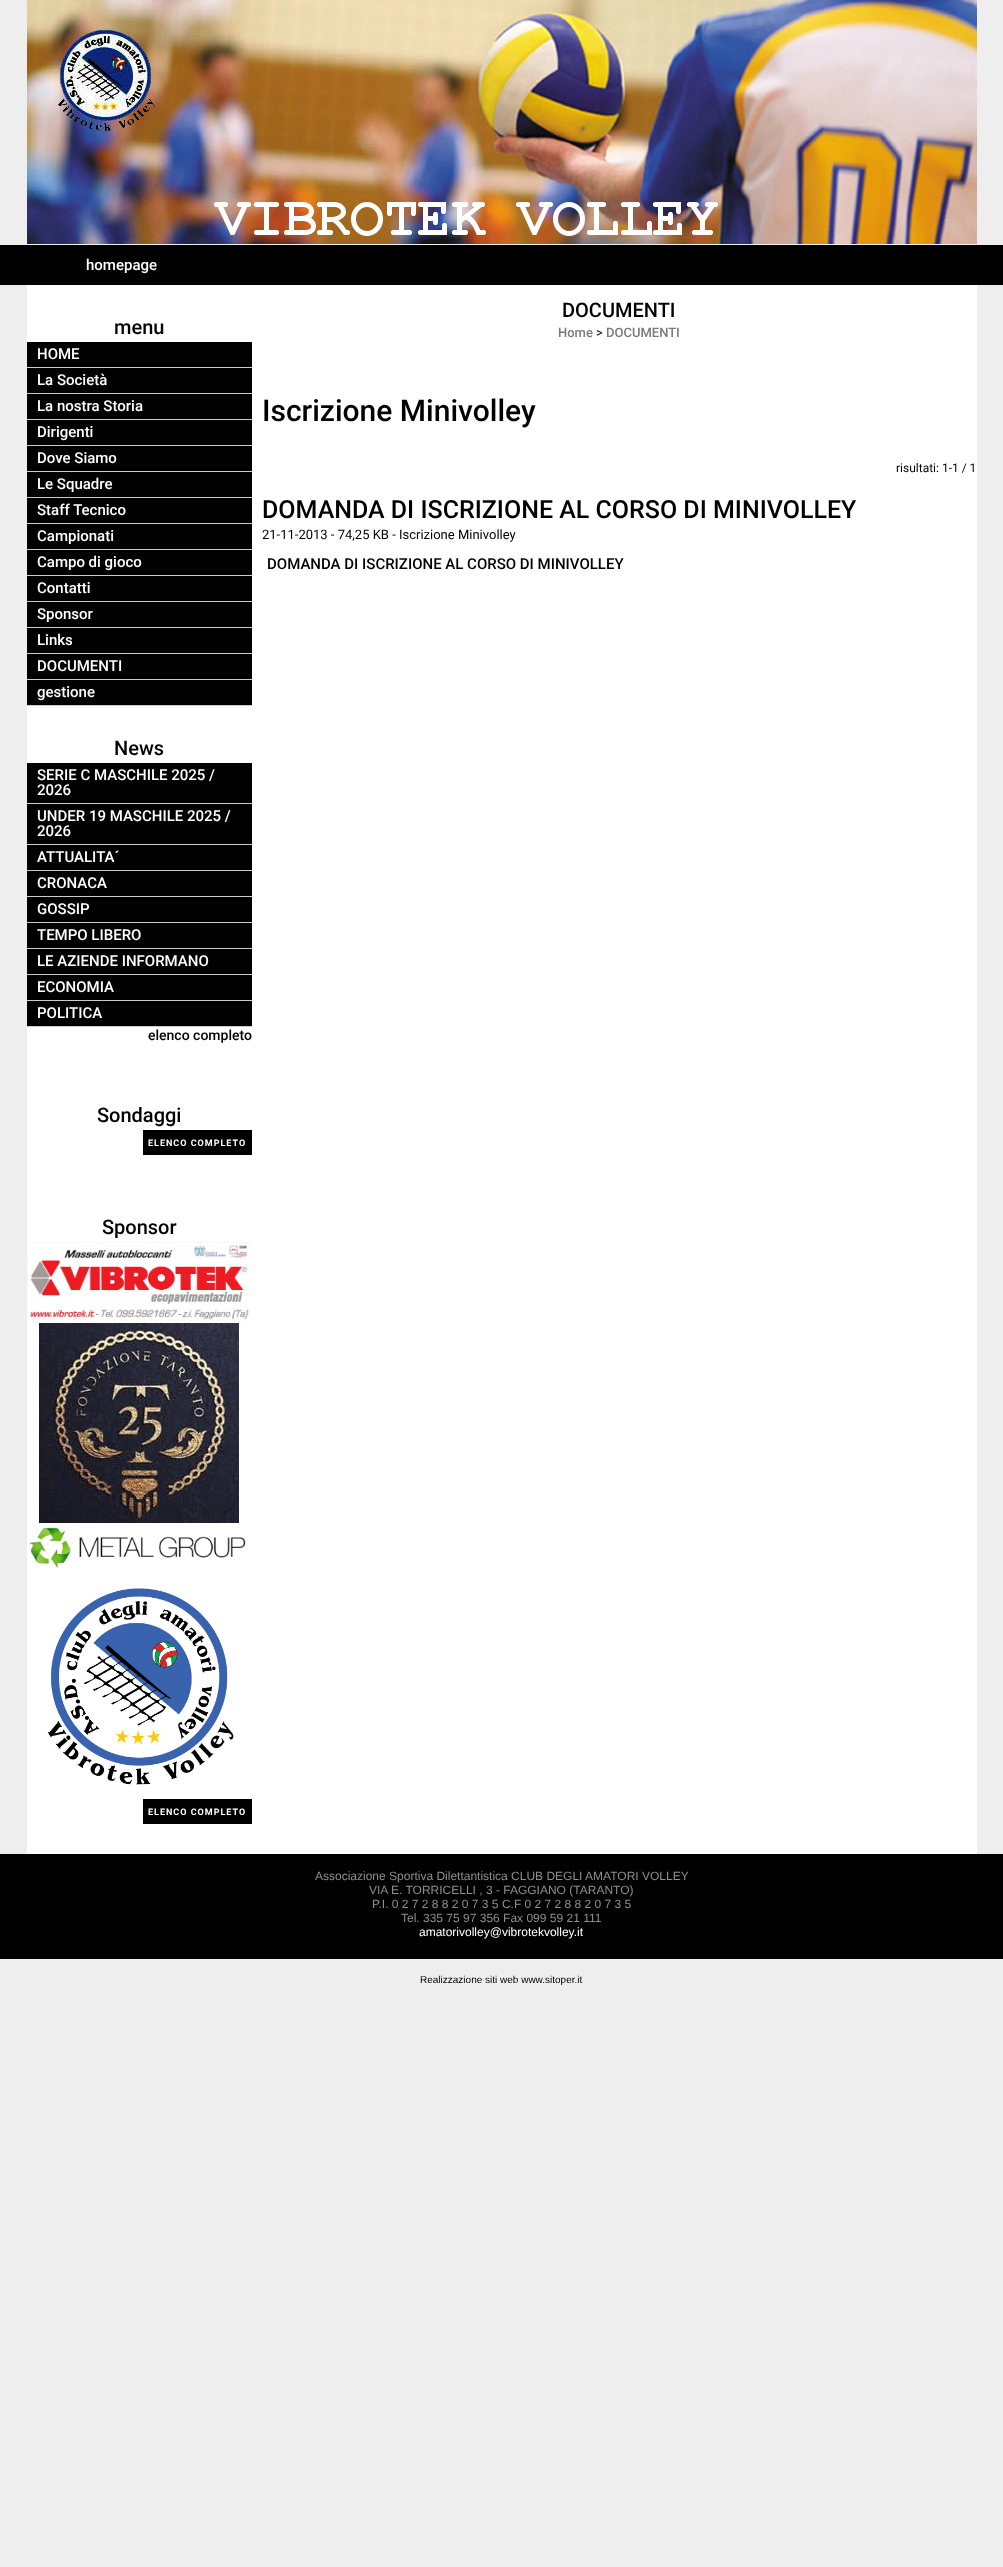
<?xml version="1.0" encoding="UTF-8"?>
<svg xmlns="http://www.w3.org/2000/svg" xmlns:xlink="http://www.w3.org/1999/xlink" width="1003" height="2567">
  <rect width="100%" height="100%" fill="#eeeeee" />
  <image x="27" y="0" width="950" height="244" xlink:href="image1.png" />
  <rect y="245" width="1003" height="40" fill="#000000" />
  <rect x="27" y="285" width="950" height="1569" fill="#ffffff" />
  <rect x="27" y="342" width="225" height="25" fill="#000000" />
  <rect x="27" y="367" width="225" height="1" fill="#cccccc" />
  <rect x="27" y="368" width="225" height="25" fill="#000000" />
  <rect x="27" y="393" width="225" height="1" fill="#cccccc" />
  <rect x="27" y="394" width="225" height="25" fill="#000000" />
  <rect x="27" y="419" width="225" height="1" fill="#cccccc" />
  <rect x="27" y="420" width="225" height="25" fill="#000000" />
  <rect x="27" y="445" width="225" height="1" fill="#cccccc" />
  <rect x="27" y="446" width="225" height="25" fill="#000000" />
  <rect x="27" y="471" width="225" height="1" fill="#cccccc" />
  <rect x="27" y="472" width="225" height="25" fill="#000000" />
  <rect x="27" y="497" width="225" height="1" fill="#cccccc" />
  <rect x="27" y="498" width="225" height="25" fill="#000000" />
  <rect x="27" y="523" width="225" height="1" fill="#cccccc" />
  <rect x="27" y="524" width="225" height="25" fill="#000000" />
  <rect x="27" y="549" width="225" height="1" fill="#cccccc" />
  <rect x="27" y="550" width="225" height="25" fill="#000000" />
  <rect x="27" y="575" width="225" height="1" fill="#cccccc" />
  <rect x="27" y="576" width="225" height="25" fill="#000000" />
  <rect x="27" y="601" width="225" height="1" fill="#cccccc" />
  <rect x="27" y="602" width="225" height="25" fill="#000000" />
  <rect x="27" y="627" width="225" height="1" fill="#cccccc" />
  <rect x="27" y="628" width="225" height="25" fill="#000000" />
  <rect x="27" y="653" width="225" height="1" fill="#cccccc" />
  <rect x="27" y="654" width="225" height="25" fill="#000000" />
  <rect x="27" y="679" width="225" height="1" fill="#cccccc" />
  <rect x="27" y="680" width="225" height="25" fill="#000000" />
  <rect x="27" y="705" width="225" height="1" fill="#cccccc" />
  <rect x="27" y="763" width="225" height="40" fill="#000000" />
  <rect x="27" y="803" width="225" height="1" fill="#cccccc" />
  <rect x="27" y="804" width="225" height="40" fill="#000000" />
  <rect x="27" y="844" width="225" height="1" fill="#cccccc" />
  <rect x="27" y="845" width="225" height="25" fill="#000000" />
  <rect x="27" y="870" width="225" height="1" fill="#cccccc" />
  <rect x="27" y="871" width="225" height="25" fill="#000000" />
  <rect x="27" y="896" width="225" height="1" fill="#cccccc" />
  <rect x="27" y="897" width="225" height="25" fill="#000000" />
  <rect x="27" y="922" width="225" height="1" fill="#cccccc" />
  <rect x="27" y="923" width="225" height="25" fill="#000000" />
  <rect x="27" y="948" width="225" height="1" fill="#cccccc" />
  <rect x="27" y="949" width="225" height="25" fill="#000000" />
  <rect x="27" y="974" width="225" height="1" fill="#cccccc" />
  <rect x="27" y="975" width="225" height="25" fill="#000000" />
  <rect x="27" y="1000" width="225" height="1" fill="#cccccc" />
  <rect x="27" y="1001" width="225" height="25" fill="#000000" />
  <rect x="27" y="1026" width="225" height="1" fill="#cccccc" />
  <rect x="143" y="1130" width="109" height="25" fill="#000000" />
  <image x="27" y="1242" width="224" height="80" xlink:href="image2.png" />
  <image x="39" y="1323" width="200" height="200" xlink:href="image3.png" />
  <image x="29" y="1527" width="217" height="41" xlink:href="image4.png" />
  <image x="47" y="1588" width="187" height="197" xlink:href="image5.png" />
  <rect x="143" y="1799" width="109" height="25" fill="#000000" />
  <rect y="1854" width="1003" height="105" fill="#000000" />
  <text x="86" y="270" style="font-family: Roboto; font-size: 15px; font-weight: 500; fill: #ffffff">homepage</text>
  <text x="114" y="334" style="font-family: Roboto; font-size: 20px; font-weight: 500; fill: #000000">menu</text>
  <text x="37" y="359" style="font-family: Roboto; font-size: 15px; font-weight: 500; fill: #ffffff">HOME</text>
  <text x="37" y="385" style="font-family: Roboto; font-size: 15px; font-weight: 500; fill: #ffffff">La Società</text>
  <text x="37" y="411" style="font-family: Roboto; font-size: 15px; font-weight: 500; fill: #ffffff">La nostra Storia</text>
  <text x="37" y="437" style="font-family: Roboto; font-size: 15px; font-weight: 500; fill: #ffffff">Dirigenti</text>
  <text x="37" y="463" style="font-family: Roboto; font-size: 15px; font-weight: 500; fill: #ffffff">Dove Siamo</text>
  <text x="37" y="489" style="font-family: Roboto; font-size: 15px; font-weight: 500; fill: #ffffff">Le Squadre</text>
  <text x="37" y="515" style="font-family: Roboto; font-size: 15px; font-weight: 500; fill: #ffffff">Staff Tecnico</text>
  <text x="37" y="541" style="font-family: Roboto; font-size: 15px; font-weight: 500; fill: #ffffff">Campionati</text>
  <text x="37" y="567" style="font-family: Roboto; font-size: 15px; font-weight: 500; fill: #ffffff">Campo di gioco</text>
  <text x="37" y="593" style="font-family: Roboto; font-size: 15px; font-weight: 500; fill: #ffffff">Contatti</text>
  <text x="37" y="619" style="font-family: Roboto; font-size: 15px; font-weight: 500; fill: #ffffff">Sponsor</text>
  <text x="37" y="645" style="font-family: Roboto; font-size: 15px; font-weight: 500; fill: #ffffff">Links</text>
  <text x="37" y="671" style="font-family: Roboto; font-size: 15px; font-weight: 500; fill: #ffffff">DOCUMENTI</text>
  <text x="37" y="697" style="font-family: Roboto; font-size: 15px; font-weight: 500; fill: #ffffff">gestione</text>
  <text x="114" y="755" style="font-family: Roboto; font-size: 20px; font-weight: 500; fill: #000000">News</text>
  <text x="37" y="780" style="font-family: Roboto; font-size: 15px; font-weight: 500; fill: #ffffff">SERIE C MASCHILE 2025 /</text>
  <text x="37" y="795" style="font-family: Roboto; font-size: 15px; font-weight: 500; fill: #ffffff">2026</text>
  <text x="37" y="821" style="font-family: Roboto; font-size: 15px; font-weight: 500; fill: #ffffff">UNDER 19 MASCHILE 2025 /</text>
  <text x="37" y="836" style="font-family: Roboto; font-size: 15px; font-weight: 500; fill: #ffffff">2026</text>
  <text x="37" y="862" style="font-family: Roboto; font-size: 15px; font-weight: 500; fill: #ffffff">ATTUALITA´</text>
  <text x="37" y="888" style="font-family: Roboto; font-size: 15px; font-weight: 500; fill: #ffffff">CRONACA</text>
  <text x="37" y="914" style="font-family: Roboto; font-size: 15px; font-weight: 500; fill: #ffffff">GOSSIP</text>
  <text x="37" y="940" style="font-family: Roboto; font-size: 15px; font-weight: 500; fill: #ffffff">TEMPO LIBERO</text>
  <text x="37" y="966" style="font-family: Roboto; font-size: 15px; font-weight: 500; fill: #ffffff">LE AZIENDE INFORMANO</text>
  <text x="37" y="992" style="font-family: Roboto; font-size: 15px; font-weight: 500; fill: #ffffff">ECONOMIA</text>
  <text x="37" y="1018" style="font-family: Roboto; font-size: 15px; font-weight: 500; fill: #ffffff">POLITICA</text>
  <text x="148" y="1040" style="font-family: Roboto; font-size: 14px; font-weight: 500; fill: #000000">elenco completo</text>
  <text x="97" y="1122" style="font-family: Roboto; font-size: 20px; font-weight: 500; fill: #000000">Sondaggi</text>
  <text x="148" y="1146" style="font-family: Roboto; font-size: 9px; font-weight: bold; letter-spacing: 1px; fill: #ffffff">ELENCO COMPLETO</text>
  <text x="102" y="1234" style="font-family: Roboto; font-size: 20px; font-weight: 500; fill: #000000">Sponsor</text>
  <text x="148" y="1815" style="font-family: Roboto; font-size: 9px; font-weight: bold; letter-spacing: 1px; fill: #ffffff">ELENCO COMPLETO</text>
  <text x="562" y="317" style="font-family: Roboto; font-size: 20px; font-weight: 500; fill: #000000">DOCUMENTI</text>
  <text x="558" y="337" style="font-family: Roboto; font-size: 13px; font-weight: 500; fill: #7a7a7a">Home</text>
  <text x="596" y="337" style="font-family: Roboto; font-size: 13px; fill: #000000">&gt;</text>
  <text x="606" y="337" style="font-family: Roboto; font-size: 13px; font-weight: 500; fill: #7a7a7a">DOCUMENTI</text>
  <text x="262" y="421" style="font-family: Roboto; font-size: 30px; font-weight: 500; fill: #000000">Iscrizione Minivolley</text>
  <text x="896" y="472" style="font-family: Roboto; font-size: 12px; fill: #000000">risultati: 1-1 / 1</text>
  <text x="262" y="518" style="font-family: Roboto; font-size: 25px; font-weight: 500; fill: #000000">DOMANDA DI ISCRIZIONE AL CORSO DI MINIVOLLEY</text>
  <text x="262" y="539" style="font-family: Roboto; font-size: 13px; fill: #000000">21-11-2013 - 74,25 KB - Iscrizione Minivolley</text>
  <text x="267" y="569" style="font-family: Roboto; font-size: 15px; font-weight: 500; fill: #000000">DOMANDA DI ISCRIZIONE AL CORSO DI MINIVOLLEY</text>
  <text x="315" y="1880" style="font-family: Liberation Sans; font-size: 12px; fill: #8f8f8f">Associazione Sportiva Dilettantistica CLUB DEGLI AMATORI VOLLEY</text>
  <text x="369" y="1894" style="font-family: Liberation Sans; font-size: 12px; fill: #8f8f8f">VIA E. TORRICELLI , 3 - FAGGIANO (TARANTO)</text>
  <text x="372" y="1908" style="font-family: Liberation Sans; font-size: 12px; fill: #8f8f8f">P.I. 0 2 7 2 8 8 2 0 7 3 5 C.F 0 2 7 2 8 8 2 0 7 3 5</text>
  <text x="401" y="1922" style="font-family: Liberation Sans; font-size: 12px; fill: #8f8f8f">Tel. 335 75 97 356 Fax 099 59 21 111</text>
  <text x="419" y="1936" style="font-family: Liberation Sans; font-size: 12px; fill: #ffffff">amatorivolley@vibrotekvolley.it</text>
  <text x="420" y="1983" style="font-family: Liberation Sans; font-size: 10px; fill: #000000">Realizzazione siti web www.sitoper.it</text>
</svg>
